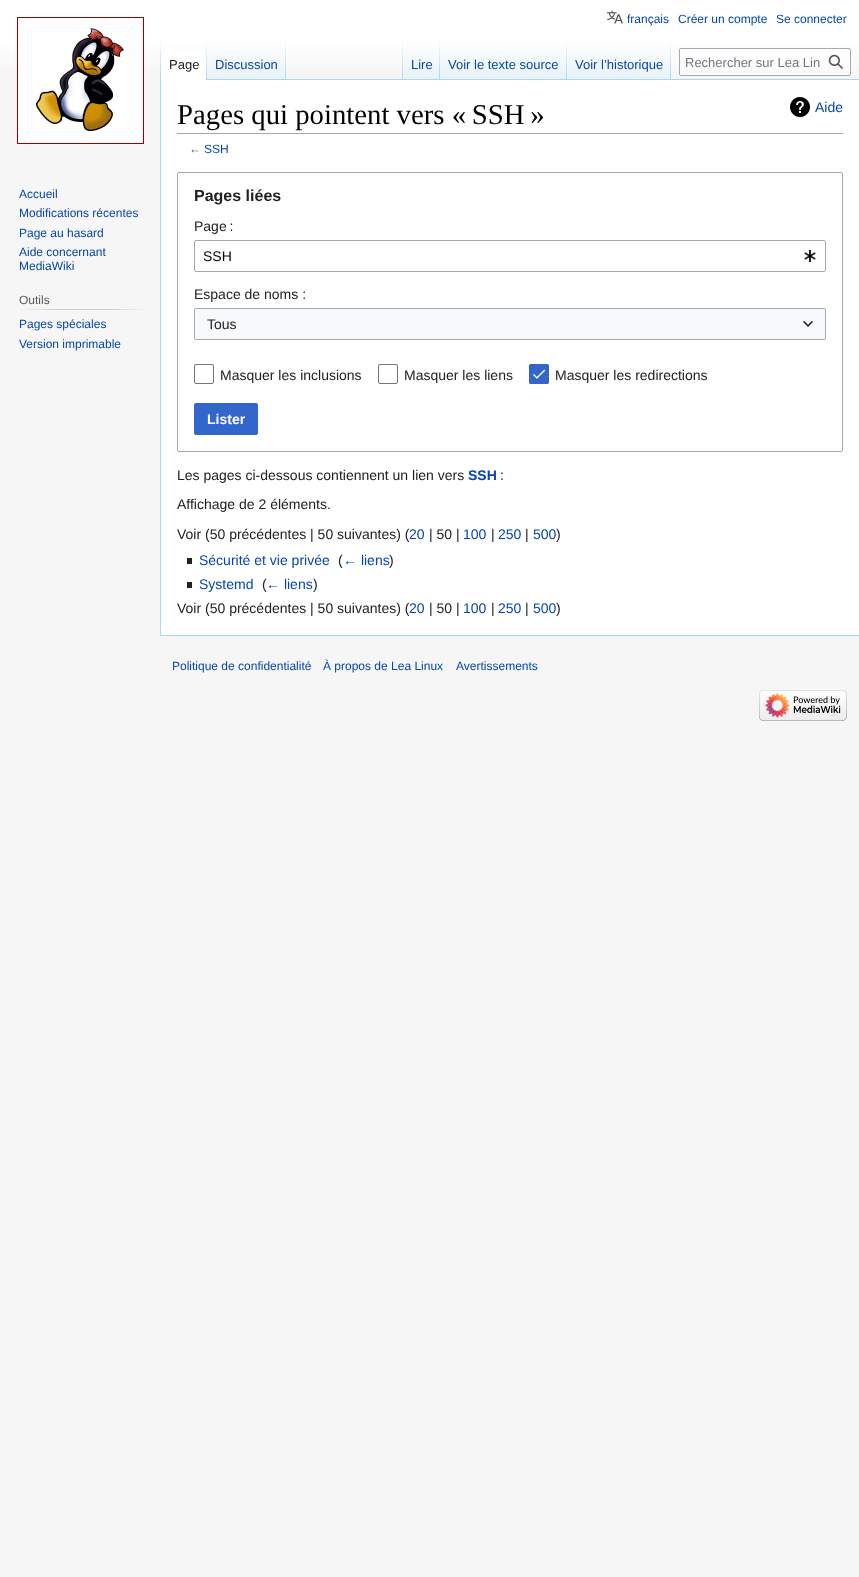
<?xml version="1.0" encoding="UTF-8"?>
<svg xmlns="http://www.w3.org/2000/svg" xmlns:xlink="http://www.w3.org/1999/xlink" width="859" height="1577">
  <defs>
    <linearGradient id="g1" gradientUnits="userSpaceOnUse" x1="430" y1="0" x2="430" y2="80"><stop offset="0.5" stop-color="#ffffff" /><stop offset="1" stop-color="#f6f6f6" /></linearGradient>
    <linearGradient id="g2" gradientUnits="userSpaceOnUse" x1="161" y1="40" x2="161" y2="80"><stop offset="0" stop-color="#a7d7f9" stop-opacity="0" /><stop offset="1" stop-color="#a7d7f9" /></linearGradient>
    <linearGradient id="g3" gradientUnits="userSpaceOnUse" x1="207" y1="40" x2="207" y2="80"><stop offset="0" stop-color="#ffffff" /><stop offset="1" stop-color="#a7d7f9" /></linearGradient>
    <linearGradient id="g4" gradientUnits="userSpaceOnUse" x1="247" y1="80" x2="247" y2="40"><stop offset="0" stop-color="#77c1f6" /><stop offset="0.03" stop-color="#e8f2f8" /><stop offset="1" stop-color="#ffffff" /></linearGradient>
    <linearGradient id="g5" gradientUnits="userSpaceOnUse" x1="286" y1="40" x2="286" y2="80"><stop offset="0" stop-color="#a7d7f9" stop-opacity="0" /><stop offset="1" stop-color="#a7d7f9" /></linearGradient>
    <linearGradient id="g6" gradientUnits="userSpaceOnUse" x1="403" y1="40" x2="403" y2="80"><stop offset="0" stop-color="#a7d7f9" stop-opacity="0" /><stop offset="1" stop-color="#a7d7f9" /></linearGradient>
    <linearGradient id="g7" gradientUnits="userSpaceOnUse" x1="422" y1="80" x2="422" y2="40"><stop offset="0" stop-color="#77c1f6" /><stop offset="0.03" stop-color="#e8f2f8" /><stop offset="1" stop-color="#ffffff" /></linearGradient>
    <linearGradient id="g8" gradientUnits="userSpaceOnUse" x1="440" y1="40" x2="440" y2="80"><stop offset="0" stop-color="#a7d7f9" stop-opacity="0" /><stop offset="1" stop-color="#a7d7f9" /></linearGradient>
    <linearGradient id="g9" gradientUnits="userSpaceOnUse" x1="504" y1="80" x2="504" y2="40"><stop offset="0" stop-color="#77c1f6" /><stop offset="0.03" stop-color="#e8f2f8" /><stop offset="1" stop-color="#ffffff" /></linearGradient>
    <linearGradient id="g10" gradientUnits="userSpaceOnUse" x1="567" y1="40" x2="567" y2="80"><stop offset="0" stop-color="#a7d7f9" stop-opacity="0" /><stop offset="1" stop-color="#a7d7f9" /></linearGradient>
    <linearGradient id="g11" gradientUnits="userSpaceOnUse" x1="619" y1="80" x2="619" y2="40"><stop offset="0" stop-color="#77c1f6" /><stop offset="0.03" stop-color="#e8f2f8" /><stop offset="1" stop-color="#ffffff" /></linearGradient>
    <linearGradient id="g12" gradientUnits="userSpaceOnUse" x1="671" y1="40" x2="671" y2="80"><stop offset="0" stop-color="#a7d7f9" stop-opacity="0" /><stop offset="1" stop-color="#a7d7f9" /></linearGradient>
    <linearGradient id="g13" gradientUnits="userSpaceOnUse" x1="19" y1="310" x2="150" y2="310"><stop offset="0" stop-color="#f6f6f6" /><stop offset="0.33" stop-color="#c8ccd1" /><stop offset="0.66" stop-color="#c8ccd1" /><stop offset="1" stop-color="#f6f6f6" /></linearGradient>
  </defs>
  <rect width="100%" height="100%" fill="#f6f6f6" />
  <rect width="859" height="69" fill="url(#g1)" />
  <image x="607" y="10" width="16" height="14" xlink:href="image1.png" />
  <rect x="160" y="635" width="699" height="1" fill="#a7d7f9" />
  <rect x="160" y="79" width="1" height="557" fill="#a7d7f9" />
  <rect x="160" y="40" width="1" height="40" fill="url(#g2)" />
  <rect x="161" y="51" width="45" height="29" fill="#ffffff" />
  <rect x="206" y="40" width="1" height="40" fill="url(#g3)" />
  <rect x="207" y="46" width="79" height="34" fill="url(#g4)" />
  <rect x="285" y="40" width="1" height="40" fill="url(#g5)" />
  <rect x="286" y="79" width="573" height="1" fill="#a7d7f9" />
  <rect x="402" y="40" width="1" height="40" fill="url(#g6)" />
  <rect x="403" y="46" width="37" height="33" fill="url(#g7)" />
  <rect x="439" y="40" width="1" height="40" fill="url(#g8)" />
  <rect x="440" y="46" width="127" height="33" fill="url(#g9)" />
  <rect x="566" y="40" width="1" height="40" fill="url(#g10)" />
  <rect x="567" y="46" width="104" height="33" fill="url(#g11)" />
  <rect x="670" y="40" width="1" height="40" fill="url(#g12)" />
  <rect x="679.5" y="48.5" width="171" height="27" rx="1.5" fill="#ffffff" fill-opacity="0.5" stroke="#a2a9b1" />
  <image x="828" y="54" width="15" height="15" xlink:href="image2.png" />
  <image x="17" y="17" width="127" height="127" xlink:href="image3.png" />
  <rect x="19" y="309" width="131" height="1" fill="url(#g13)" />
  <rect x="161" y="80" width="698" height="555" fill="#ffffff" />
  <rect x="177" y="133" width="666" height="1" fill="#a2a9b1" />
  <image x="790" y="97" width="20" height="20" xlink:href="image4.png" />
  <rect x="177.5" y="172.5" width="665" height="279" rx="1.5" fill="none" stroke="#a2a9b1" />
  <rect x="194.5" y="240.5" width="631" height="31" rx="1.5" fill="none" stroke="#a2a9b1" />
  <image x="804" y="250" width="12" height="12" xlink:href="image5.png" />
  <rect x="194" y="308" width="632" height="32" fill="#f8f9fa" />
  <rect x="194.5" y="308.5" width="631" height="31" rx="1.5" fill="none" stroke="#a2a9b1" />
  <image x="803" y="321" width="10" height="6" xlink:href="image6.png" />
  <rect x="194.5" y="364.5" width="19" height="19" rx="1.5" fill="none" stroke="#72777d" />
  <rect x="378.5" y="364.5" width="19" height="19" rx="1.5" fill="none" stroke="#72777d" />
  <rect x="529" y="364" width="20" height="20" rx="2" fill="#3366cc" />
  <image x="533" y="369" width="13" height="10" xlink:href="image7.png" />
  <rect x="529.5" y="364.5" width="19" height="19" rx="1.5" fill="none" stroke="#3366cc" />
  <rect x="194.5" y="403.5" width="63" height="31" rx="1.5" fill="#3366cc" stroke="#3366cc" />
  <rect x="187" y="558" width="5" height="6" fill="#202122" />
  <rect x="187" y="582" width="5" height="6" fill="#202122" />
  <image x="759" y="690" width="88" height="31" xlink:href="image8.png" />
  <text x="627" y="23" style="font-family: Liberation Sans; font-size: 12px; fill: #0645ad">français</text>
  <text x="678" y="23" style="font-family: Liberation Sans; font-size: 12px; fill: #0645ad">Créer un compte</text>
  <text x="776" y="23" style="font-family: Liberation Sans; font-size: 12px; fill: #0645ad">Se connecter</text>
  <text x="169" y="69" style="font-family: Liberation Sans; font-size: 13px; fill: #202122">Page</text>
  <text x="215" y="69" style="font-family: Liberation Sans; font-size: 13px; fill: #0645ad">Discussion</text>
  <text x="411" y="69" style="font-family: Liberation Sans; font-size: 13px; fill: #0645ad">Lire</text>
  <text x="448" y="69" style="font-family: Liberation Sans; font-size: 13px; fill: #0645ad">Voir le texte source</text>
  <text x="575" y="69" style="font-family: Liberation Sans; font-size: 13px; fill: #0645ad">Voir l’historique</text>
  <text x="685" y="67" style="font-family: Liberation Sans; font-size: 13px; fill: #72777d">Rechercher sur Lea Lin</text>
  <text x="19" y="198" style="font-family: Liberation Sans; font-size: 12px; fill: #0645ad">Accueil</text>
  <text x="19" y="217" style="font-family: Liberation Sans; font-size: 12px; fill: #0645ad">Modifications récentes</text>
  <text x="19" y="237" style="font-family: Liberation Sans; font-size: 12px; fill: #0645ad">Page au hasard</text>
  <text x="19" y="256" style="font-family: Liberation Sans; font-size: 12px; fill: #0645ad">Aide concernant</text>
  <text x="19" y="270" style="font-family: Liberation Sans; font-size: 12px; fill: #0645ad">MediaWiki</text>
  <text x="19" y="304" style="font-family: Liberation Sans; font-size: 12px; fill: #54595d">Outils</text>
  <text x="19" y="328" style="font-family: Liberation Sans; font-size: 12px; fill: #0645ad">Pages spéciales</text>
  <text x="19" y="348" style="font-family: Liberation Sans; font-size: 12px; fill: #0645ad">Version imprimable</text>
  <text x="177" y="124" style="font-family: Liberation Serif; font-size: 28.75px; fill: #000000">Pages qui pointent vers « SSH »</text>
  <text x="815" y="112" style="font-family: Liberation Sans; font-size: 14px; fill: #0645ad">Aide</text>
  <text x="189" y="153" style="font-family: Liberation Sans; font-size: 12px; fill: #54595d">←</text>
  <text x="204" y="153" style="font-family: Liberation Sans; font-size: 12px; fill: #0645ad">SSH</text>
  <text x="194" y="201" style="font-family: Liberation Sans; font-size: 16px; font-weight: bold; fill: #202122">Pages liées</text>
  <text x="194" y="231" style="font-family: Liberation Sans; font-size: 14px; fill: #202122">Page :</text>
  <text x="203" y="261" style="font-family: Liberation Sans; font-size: 14px; fill: #000000">SSH</text>
  <text x="194" y="299" style="font-family: Liberation Sans; font-size: 14px; fill: #202122">Espace de noms :</text>
  <text x="207" y="329" style="font-family: Liberation Sans; font-size: 14px; fill: #202122">Tous</text>
  <text x="220" y="380" style="font-family: Liberation Sans; font-size: 14px; fill: #202122">Masquer les inclusions</text>
  <text x="404" y="380" style="font-family: Liberation Sans; font-size: 14px; fill: #202122">Masquer les liens</text>
  <text x="555" y="380" style="font-family: Liberation Sans; font-size: 14px; fill: #202122">Masquer les redirections</text>
  <text x="207" y="424" style="font-family: Liberation Sans; font-size: 14px; font-weight: bold; fill: #ffffff">Lister</text>
  <text x="177" y="480" style="font-family: Liberation Sans; font-size: 14px; fill: #202122">Les pages ci-dessous contiennent un lien vers</text>
  <text x="468" y="480" style="font-family: Liberation Sans; font-size: 14px; font-weight: bold; fill: #0645ad">SSH</text>
  <text x="500" y="480" style="font-family: Liberation Sans; font-size: 14px; fill: #202122">:</text>
  <text x="177" y="509" style="font-family: Liberation Sans; font-size: 14px; fill: #202122">Affichage de 2 éléments.</text>
  <text x="177" y="539" style="font-family: Liberation Sans; font-size: 14px; fill: #202122">Voir (50 précédentes | 50 suivantes) (</text>
  <text x="409" y="539" style="font-family: Liberation Sans; font-size: 14px; fill: #0645ad">20</text>
  <text x="429" y="539" style="font-family: Liberation Sans; font-size: 14px; fill: #202122">| 50 |</text>
  <text x="463" y="539" style="font-family: Liberation Sans; font-size: 14px; fill: #0645ad">100</text>
  <text x="491" y="539" style="font-family: Liberation Sans; font-size: 14px; fill: #202122">|</text>
  <text x="498" y="539" style="font-family: Liberation Sans; font-size: 14px; fill: #0645ad">250</text>
  <text x="525" y="539" style="font-family: Liberation Sans; font-size: 14px; fill: #202122">|</text>
  <text x="533" y="539" style="font-family: Liberation Sans; font-size: 14px; fill: #0645ad">500</text>
  <text x="556" y="539" style="font-family: Liberation Sans; font-size: 14px; fill: #202122">)</text>
  <text x="199" y="565" style="font-family: Liberation Sans; font-size: 14px; fill: #0645ad">Sécurité et vie privée</text>
  <text x="338" y="565" style="font-family: Liberation Sans; font-size: 14px; fill: #202122">(</text>
  <text x="343" y="565" style="font-family: Liberation Sans; font-size: 14px; fill: #0645ad">← liens</text>
  <text x="389" y="565" style="font-family: Liberation Sans; font-size: 14px; fill: #202122">)</text>
  <text x="199" y="589" style="font-family: Liberation Sans; font-size: 14px; fill: #0645ad">Systemd</text>
  <text x="262" y="589" style="font-family: Liberation Sans; font-size: 14px; fill: #202122">(</text>
  <text x="266" y="589" style="font-family: Liberation Sans; font-size: 14px; fill: #0645ad">← liens</text>
  <text x="313" y="589" style="font-family: Liberation Sans; font-size: 14px; fill: #202122">)</text>
  <text x="177" y="613" style="font-family: Liberation Sans; font-size: 14px; fill: #202122">Voir (50 précédentes | 50 suivantes) (</text>
  <text x="409" y="613" style="font-family: Liberation Sans; font-size: 14px; fill: #0645ad">20</text>
  <text x="429" y="613" style="font-family: Liberation Sans; font-size: 14px; fill: #202122">| 50 |</text>
  <text x="463" y="613" style="font-family: Liberation Sans; font-size: 14px; fill: #0645ad">100</text>
  <text x="491" y="613" style="font-family: Liberation Sans; font-size: 14px; fill: #202122">|</text>
  <text x="498" y="613" style="font-family: Liberation Sans; font-size: 14px; fill: #0645ad">250</text>
  <text x="525" y="613" style="font-family: Liberation Sans; font-size: 14px; fill: #202122">|</text>
  <text x="533" y="613" style="font-family: Liberation Sans; font-size: 14px; fill: #0645ad">500</text>
  <text x="556" y="613" style="font-family: Liberation Sans; font-size: 14px; fill: #202122">)</text>
  <text x="172" y="670" style="font-family: Liberation Sans; font-size: 12px; fill: #0645ad">Politique de confidentialité</text>
  <text x="323" y="670" style="font-family: Liberation Sans; font-size: 12px; fill: #0645ad">À propos de Lea Linux</text>
  <text x="456" y="670" style="font-family: Liberation Sans; font-size: 12px; fill: #0645ad">Avertissements</text>
</svg>
